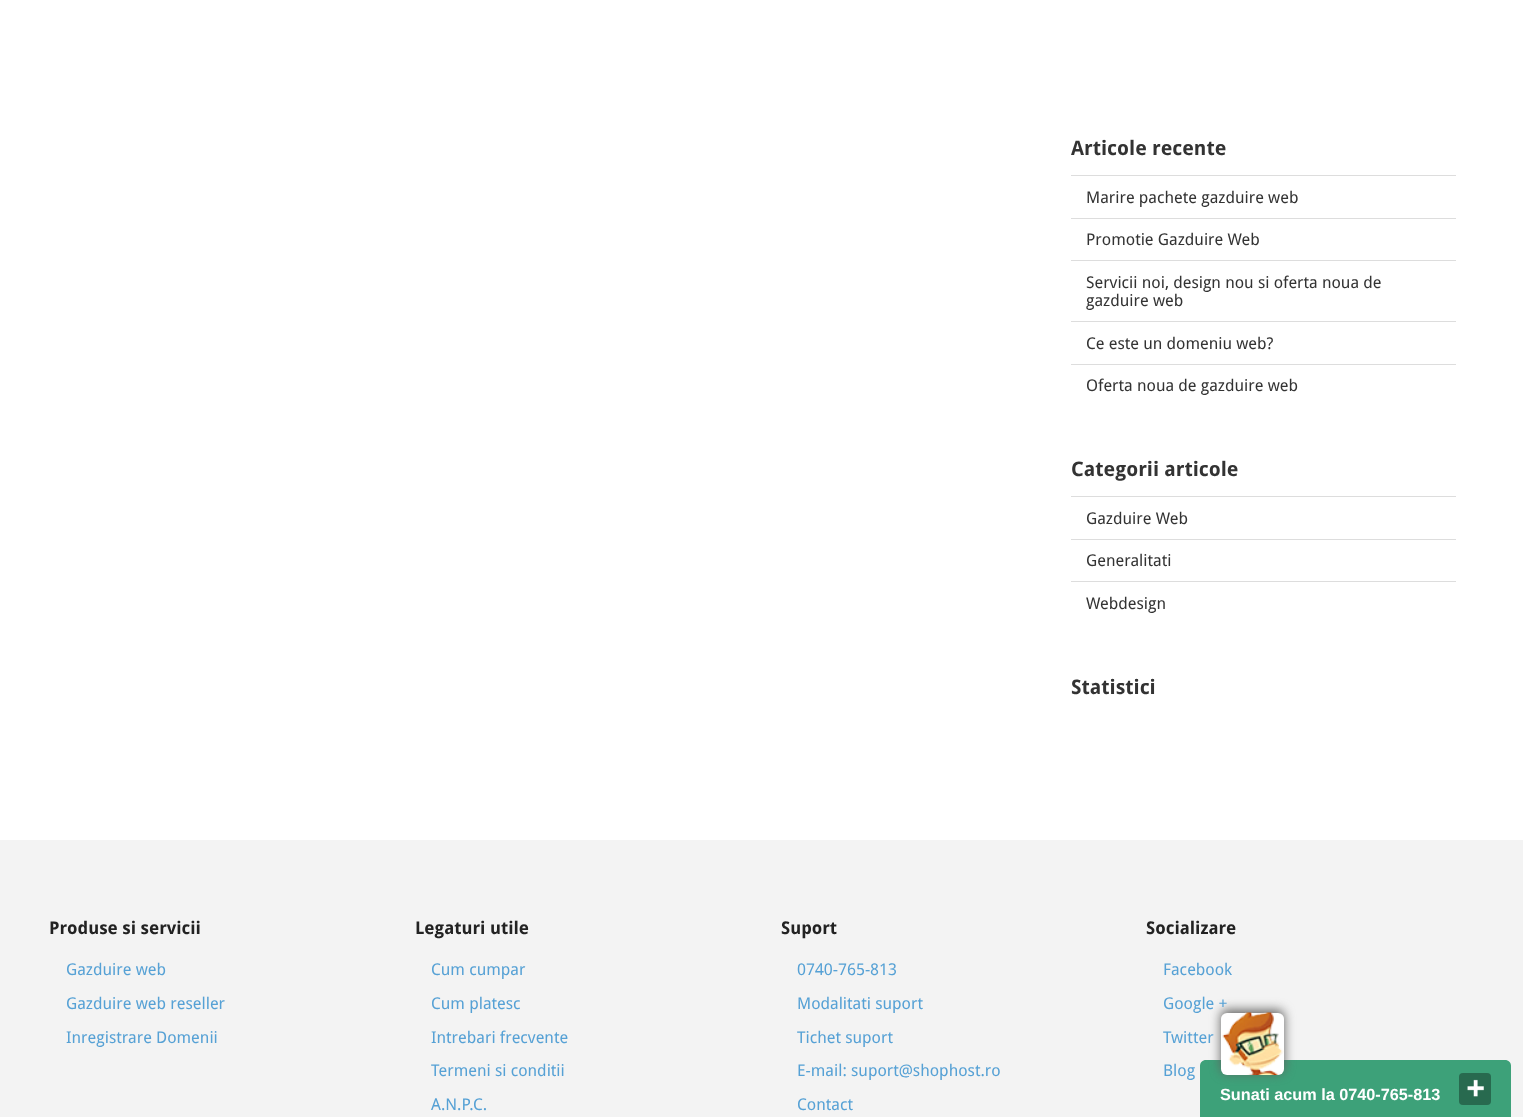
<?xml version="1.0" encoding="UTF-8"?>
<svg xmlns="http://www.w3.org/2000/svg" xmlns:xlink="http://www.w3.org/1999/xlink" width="1523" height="1117">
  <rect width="100%" height="100%" fill="#ffffff" />
  <rect x="1071" y="175" width="385" height="1" fill="#dddddd" />
  <rect x="1071" y="218" width="385" height="1" fill="#dddddd" />
  <rect x="1071" y="260" width="385" height="1" fill="#dddddd" />
  <rect x="1071" y="321" width="385" height="1" fill="#dddddd" />
  <rect x="1071" y="364" width="385" height="1" fill="#dddddd" />
  <rect x="1071" y="496" width="385" height="1" fill="#dddddd" />
  <rect x="1071" y="539" width="385" height="1" fill="#dddddd" />
  <rect x="1071" y="581" width="385" height="1" fill="#dddddd" />
  <rect y="840" width="1523" height="277" fill="#f3f3f3" />
  <path d="M 1206 1060 h 299 c 3.5 0 6 2.5 6 6 v 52 h -311 v -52 c 0 -3.5 2.5 -6 6 -6 z" fill="#3da179" />
  <rect x="1221" y="1010" width="63" height="63" rx="6" fill="#5f5f5e" filter="blur(5.5px)" />
  <rect x="1221" y="1013" width="63" height="62" rx="6" fill="#ffffff" />
  <rect x="1459" y="1073" width="32" height="32" rx="4" fill="#286a4f" />
  <image x="1467" y="1079" width="17" height="18" xlink:href="image2.png" />
  <text x="1071" y="155" style="font-family: Droid Sans; font-size: 20px; font-weight: bold; fill: #333333">Articole recente</text>
  <text x="1086" y="203" style="font-family: Droid Sans; font-size: 16.25px; fill: #333333">Marire pachete gazduire web</text>
  <text x="1086" y="245" style="font-family: Droid Sans; font-size: 16.25px; fill: #333333">Promotie Gazduire Web</text>
  <text x="1086" y="288" style="font-family: Droid Sans; font-size: 16.25px; fill: #333333">Servicii noi, design nou si oferta noua de</text>
  <text x="1086" y="306" style="font-family: Droid Sans; font-size: 16.25px; fill: #333333">gazduire web</text>
  <text x="1086" y="349" style="font-family: Droid Sans; font-size: 16.25px; fill: #333333">Ce este un domeniu web?</text>
  <text x="1086" y="391" style="font-family: Droid Sans; font-size: 16.25px; fill: #333333">Oferta noua de gazduire web</text>
  <text x="1071" y="476" style="font-family: Droid Sans; font-size: 20px; font-weight: bold; fill: #333333">Categorii articole</text>
  <text x="1086" y="524" style="font-family: Droid Sans; font-size: 16.25px; fill: #333333">Gazduire Web</text>
  <text x="1086" y="566" style="font-family: Droid Sans; font-size: 16.25px; fill: #333333">Generalitati</text>
  <text x="1086" y="609" style="font-family: Droid Sans; font-size: 16.25px; fill: #333333">Webdesign</text>
  <text x="1071" y="694" style="font-family: Droid Sans; font-size: 20px; font-weight: bold; fill: #333333">Statistici</text>
  <text x="49" y="934" style="font-family: Droid Sans; font-size: 17.5px; font-weight: bold; fill: #222222">Produse si servicii</text>
  <text x="66" y="975" style="font-family: Droid Sans; font-size: 16.25px; fill: #56a1d5">Gazduire web</text>
  <text x="66" y="1009" style="font-family: Droid Sans; font-size: 16.25px; fill: #56a1d5">Gazduire web reseller</text>
  <text x="66" y="1043" style="font-family: Droid Sans; font-size: 16.25px; fill: #56a1d5">Inregistrare Domenii</text>
  <text x="415" y="934" style="font-family: Droid Sans; font-size: 17.5px; font-weight: bold; fill: #222222">Legaturi utile</text>
  <text x="431" y="975" style="font-family: Droid Sans; font-size: 16.25px; fill: #56a1d5">Cum cumpar</text>
  <text x="431" y="1009" style="font-family: Droid Sans; font-size: 16.25px; fill: #56a1d5">Cum platesc</text>
  <text x="431" y="1043" style="font-family: Droid Sans; font-size: 16.25px; fill: #56a1d5">Intrebari frecvente</text>
  <text x="431" y="1076" style="font-family: Droid Sans; font-size: 16.25px; fill: #56a1d5">Termeni si conditii</text>
  <text x="431" y="1110" style="font-family: Droid Sans; font-size: 16.25px; fill: #56a1d5">A.N.P.C.</text>
  <text x="781" y="934" style="font-family: Droid Sans; font-size: 17.5px; font-weight: bold; fill: #222222">Suport</text>
  <text x="797" y="975" style="font-family: Droid Sans; font-size: 16.25px; fill: #56a1d5">0740-765-813</text>
  <text x="797" y="1009" style="font-family: Droid Sans; font-size: 16.25px; fill: #56a1d5">Modalitati suport</text>
  <text x="797" y="1043" style="font-family: Droid Sans; font-size: 16.25px; fill: #56a1d5">Tichet suport</text>
  <text x="797" y="1076" style="font-family: Droid Sans; font-size: 16.25px; fill: #56a1d5">E-mail: suport@shophost.ro</text>
  <text x="797" y="1110" style="font-family: Droid Sans; font-size: 16.25px; fill: #56a1d5">Contact</text>
  <text x="1146" y="934" style="font-family: Droid Sans; font-size: 17.5px; font-weight: bold; fill: #222222">Socializare</text>
  <text x="1163" y="975" style="font-family: Droid Sans; font-size: 16.25px; fill: #56a1d5">Facebook</text>
  <text x="1163" y="1009" style="font-family: Droid Sans; font-size: 16.25px; fill: #56a1d5">Google +</text>
  <text x="1163" y="1043" style="font-family: Droid Sans; font-size: 16.25px; fill: #56a1d5">Twitter</text>
  <text x="1163" y="1076" style="font-family: Droid Sans; font-size: 16.25px; fill: #56a1d5">Blog</text>
  <image x="1222" y="1012" width="62" height="63" xlink:href="image1.png" />
  <text x="1220" y="1100" style="font-family: Liberation Sans; font-size: 16.25px; font-weight: bold; fill: #ffffff">Sunati acum la 0740-765-813</text>
</svg>
